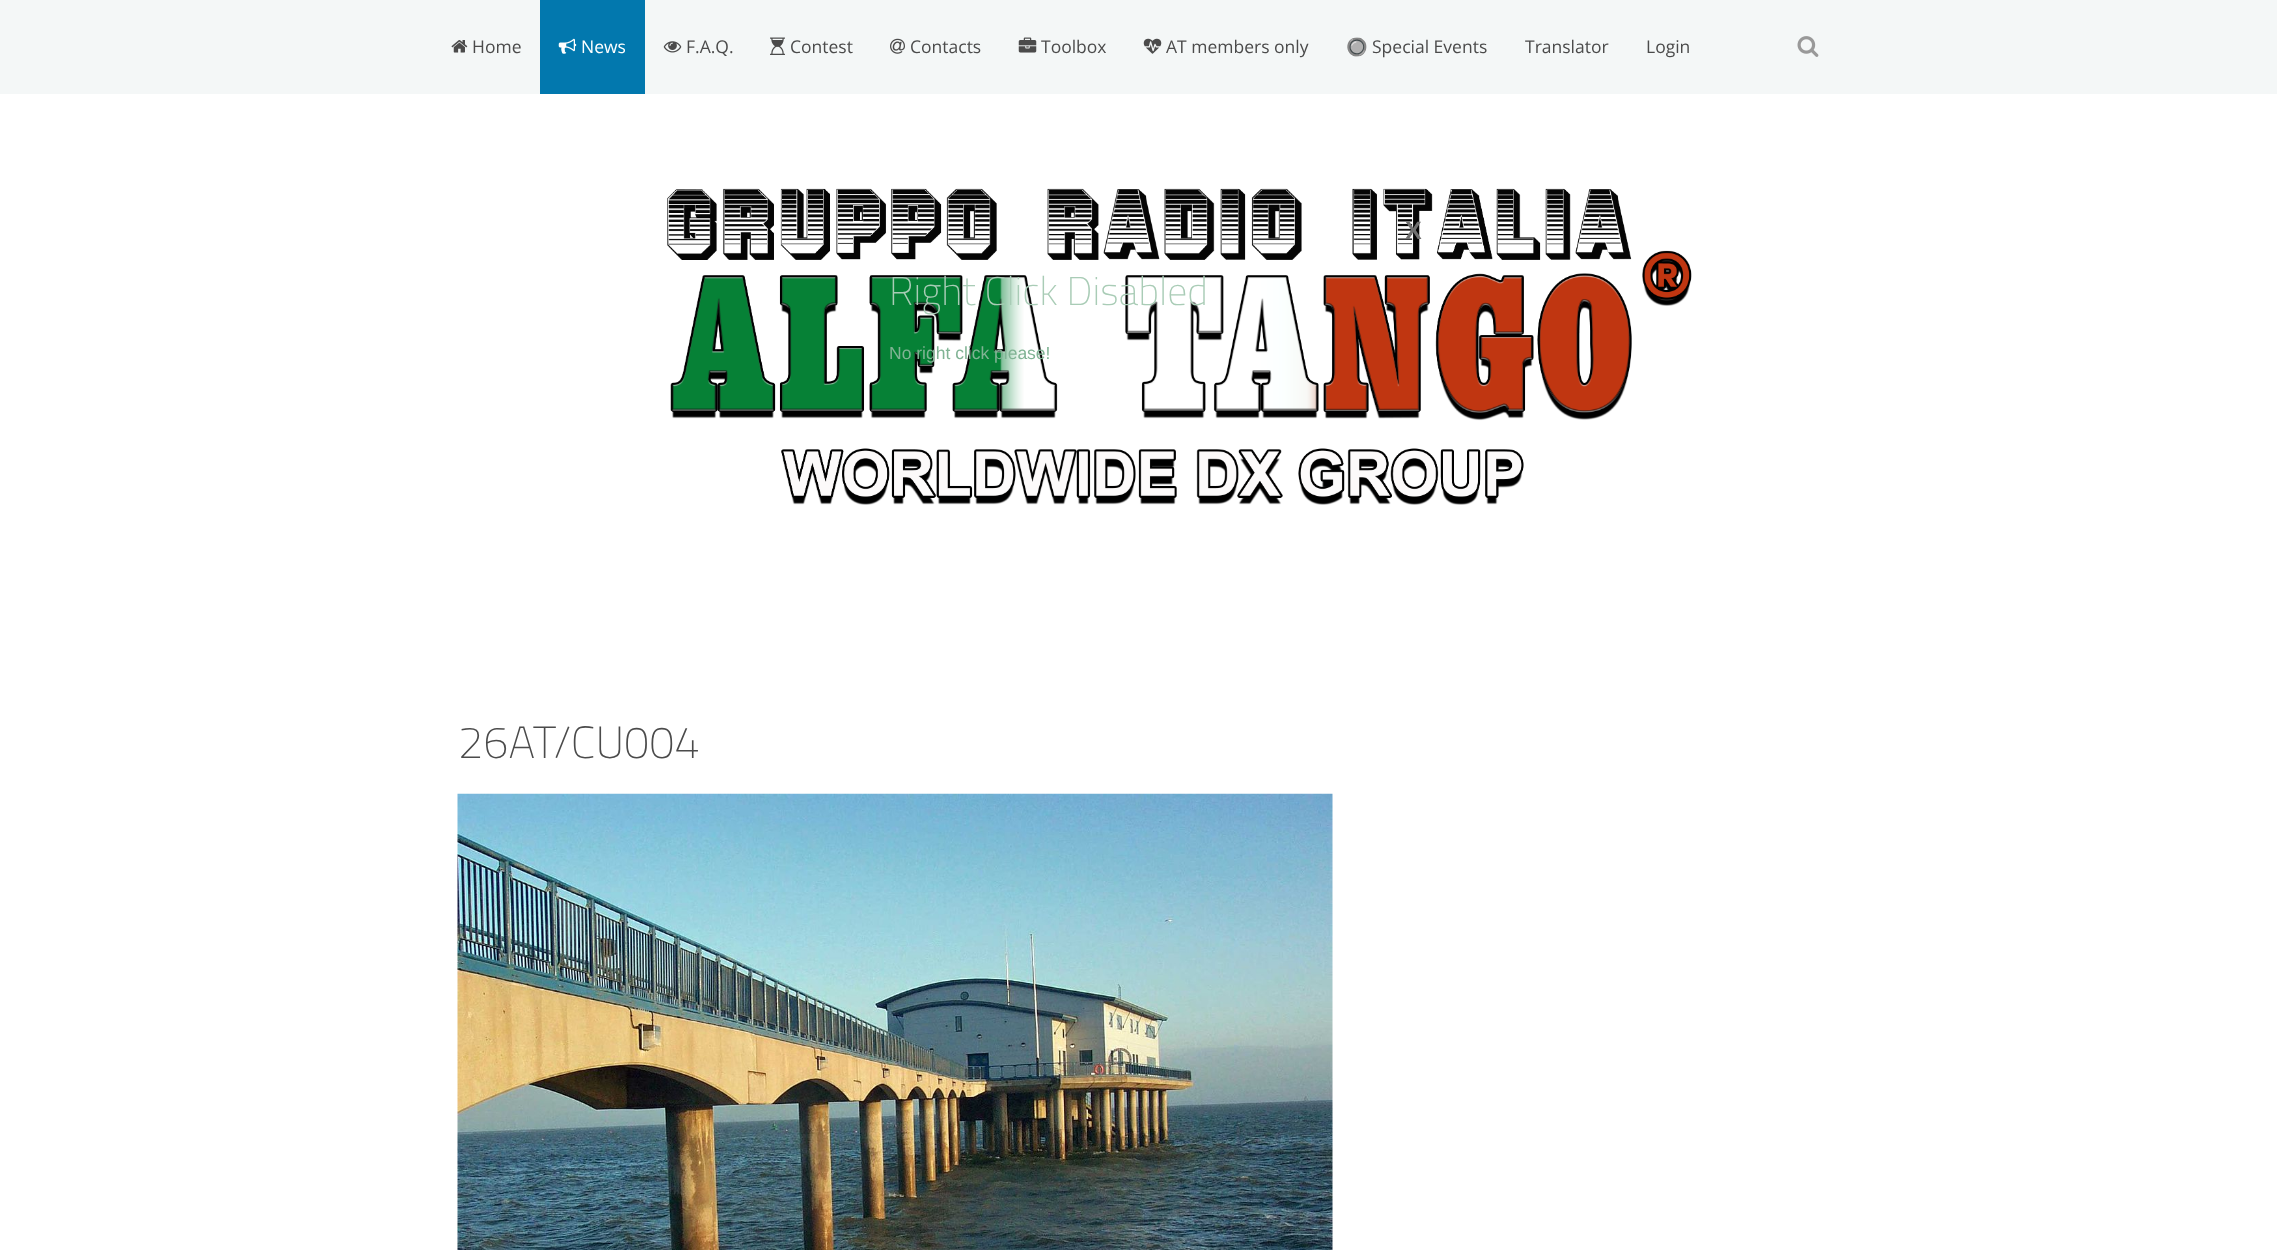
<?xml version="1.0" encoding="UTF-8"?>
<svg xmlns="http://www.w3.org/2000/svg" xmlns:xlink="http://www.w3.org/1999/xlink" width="2277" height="1250">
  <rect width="100%" height="100%" fill="#ffffff" />
  <rect width="2277" height="94" fill="#f4f7f7" />
  <image x="451" y="40" width="17" height="13" xlink:href="image1.png" />
  <rect x="540" width="105" height="94" fill="#0278ae" />
  <image x="558" y="38" width="19" height="16" xlink:href="image2.png" />
  <image x="663" y="41" width="19" height="12" xlink:href="image3.png" />
  <image x="770" y="37" width="15" height="18" xlink:href="image4.png" />
  <image x="890" y="38" width="15" height="16" xlink:href="image5.png" />
  <image x="1018" y="37" width="19" height="16" xlink:href="image6.png" />
  <image x="1143" y="38" width="19" height="16" xlink:href="image7.png" />
  <image x="1797" y="36" width="22" height="21" xlink:href="image8.png" />
  <image x="667" y="188" width="1025" height="317" xlink:href="image9.png" />
  <image x="457" y="793" width="876" height="457" xlink:href="image10.png" />
  <text x="472" y="53" style="font-family: Open Sans; font-size: 17.5px; fill: #4b4b4b">Home</text>
  <text x="581" y="53" style="font-family: Open Sans; font-size: 17.5px; fill: #ffffff">News</text>
  <text x="686" y="53" style="font-family: Open Sans; font-size: 17.5px; fill: #4b4b4b">F.A.Q.</text>
  <text x="790" y="53" style="font-family: Open Sans; font-size: 17.5px; fill: #4b4b4b">Contest</text>
  <text x="910" y="53" style="font-family: Open Sans; font-size: 17.5px; fill: #4b4b4b">Contacts</text>
  <text x="1041" y="53" style="font-family: Open Sans; font-size: 17.5px; fill: #4b4b4b">Toolbox</text>
  <text x="1166" y="53" style="font-family: Open Sans; font-size: 17.5px; fill: #4b4b4b">AT members only</text>
  <text x="1346" y="53" style="font-family: Noto Color Emoji; font-size: 17.5px; fill: #4b4b4b">🔘</text>
  <text x="1372" y="53" style="font-family: Open Sans; font-size: 17.5px; fill: #4b4b4b">Special Events</text>
  <text x="1525" y="53" style="font-family: Open Sans; font-size: 17.5px; fill: #4b4b4b">Translator</text>
  <text x="1646" y="53" style="font-family: Open Sans; font-size: 17.5px; fill: #4b4b4b">Login</text>
  <text x="1405" y="239" style="font-family: Liberation Sans; font-size: 25px; font-weight: bold; fill: #707070">X</text>
  <text x="889" y="305" style="font-family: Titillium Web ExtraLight; font-size: 40px; font-weight: 200; fill: #a9ccb6">Right Click Disabled</text>
  <text x="889" y="359" style="font-family: Liberation Sans; font-size: 17.5px; fill: #80b394">No right click please!</text>
  <text x="458" y="758" style="font-family: Titillium Web ExtraLight; font-size: 45px; font-weight: 200; fill: #4b4b4b">26AT/CU004</text>
</svg>
